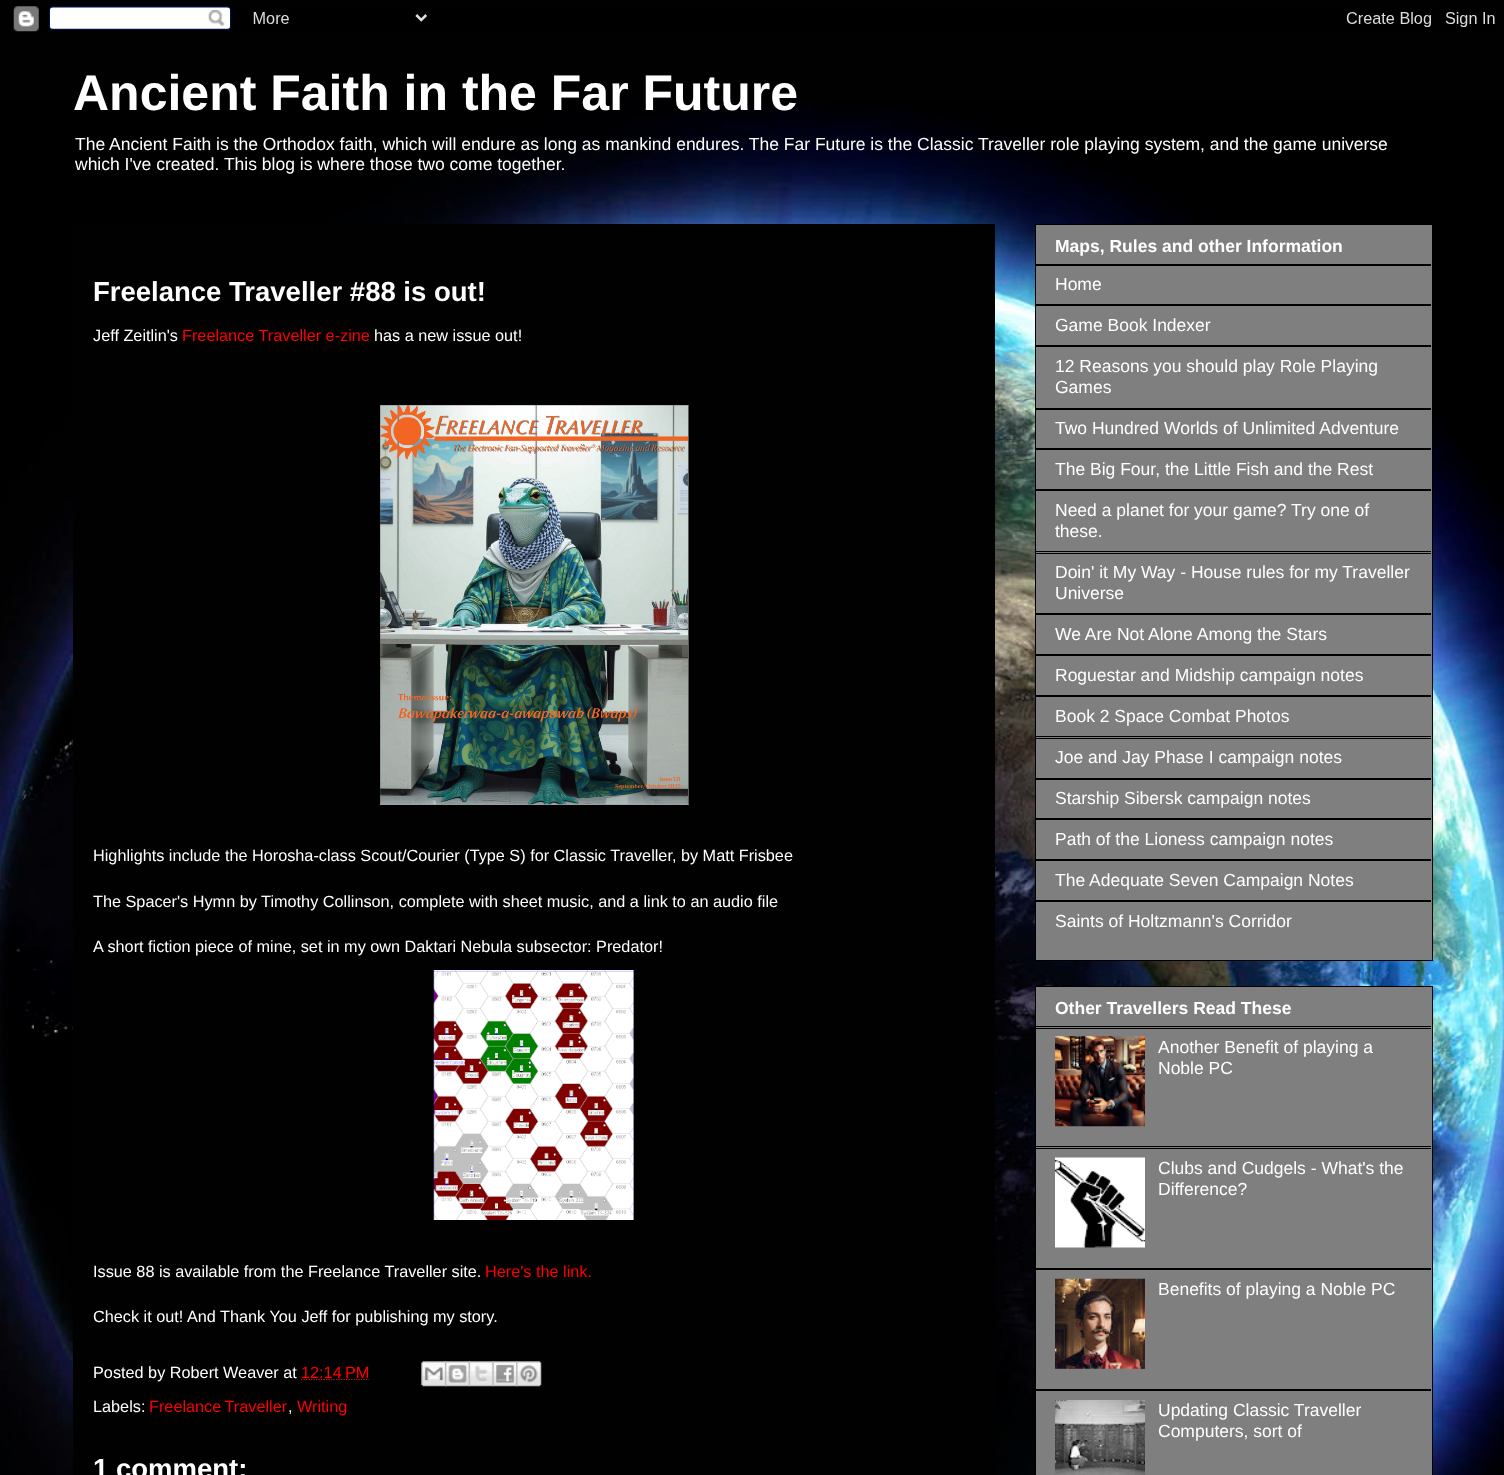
<?xml version="1.0" encoding="UTF-8"?>
<svg xmlns="http://www.w3.org/2000/svg" xmlns:xlink="http://www.w3.org/1999/xlink" width="1504" height="1475">
  <rect width="100%" height="100%" fill="#010101" />
  <image x="0" y="101" width="1504" height="1374" xlink:href="image1.png" />
  <image x="13" y="6" width="1482" height="26" xlink:href="image2.png" />
  <rect x="73" y="224" width="922" height="1251" fill="#010101" />
  <image x="380" y="405" width="309" height="400" xlink:href="image3.png" />
  <image x="433" y="970" width="201" height="250" xlink:href="image4.png" />
  <path d="M 301 1379.5 h 68" fill="none" stroke="#ff0000" stroke-width="1.2" stroke-dasharray="1.25 1.25" />
  <image x="421" y="1361" width="26" height="26" xlink:href="image5.png" />
  <image x="445" y="1361" width="25" height="26" xlink:href="image6.png" />
  <image x="468" y="1361" width="26" height="26" xlink:href="image7.png" />
  <image x="492" y="1361" width="26" height="26" xlink:href="image8.png" />
  <image x="516" y="1361" width="26" height="26" xlink:href="image9.png" />
  <rect x="1035.5" y="224.5" width="397" height="736" fill="#7f7f7f" stroke="#000000" />
  <rect x="1036" y="264" width="395" height="2" fill="#000000" />
  <rect x="1036" y="304" width="395" height="2" fill="#000000" />
  <rect x="1036" y="345" width="395" height="2" fill="#000000" />
  <rect x="1036" y="408" width="395" height="2" fill="#000000" />
  <rect x="1036" y="448" width="395" height="2" fill="#000000" />
  <rect x="1036" y="489" width="395" height="2" fill="#000000" />
  <rect x="1036" y="551" width="395" height="1" fill="#000000" />
  <rect x="1036" y="553" width="395" height="1" fill="#000000" />
  <rect x="1036" y="613" width="395" height="2" fill="#000000" />
  <rect x="1036" y="654" width="395" height="2" fill="#000000" />
  <rect x="1036" y="695" width="395" height="2" fill="#000000" />
  <rect x="1036" y="736" width="395" height="1" fill="#000000" />
  <rect x="1036" y="738" width="395" height="1" fill="#000000" />
  <rect x="1036" y="778" width="395" height="2" fill="#000000" />
  <rect x="1036" y="818" width="395" height="2" fill="#000000" />
  <rect x="1036" y="859" width="395" height="2" fill="#000000" />
  <rect x="1036" y="900" width="395" height="2" fill="#000000" />
  <rect x="1035.5" y="986.5" width="397" height="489" fill="#7f7f7f" stroke="#000000" />
  <rect x="1036" y="1026" width="395" height="1" fill="#000000" />
  <rect x="1036" y="1028" width="395" height="1" fill="#000000" />
  <rect x="1036" y="1146" width="395" height="1" fill="#000000" />
  <image x="1055" y="1036" width="90" height="91" xlink:href="image10.png" />
  <rect x="1036" y="1148" width="395" height="1" fill="#000000" />
  <rect x="1036" y="1268" width="395" height="2" fill="#000000" />
  <image x="1055" y="1157" width="90" height="91" xlink:href="image11.png" />
  <rect x="1036" y="1389" width="395" height="2" fill="#000000" />
  <image x="1055" y="1278" width="90" height="91" xlink:href="image12.png" />
  <image x="1055" y="1400" width="90" height="75" xlink:href="image13.png" />
  <text x="73" y="110" style="font-family: Liberation Sans; font-size: 50px; font-weight: bold; fill: #ffffff">Ancient Faith in the Far Future</text>
  <text x="75" y="150" style="font-family: Liberation Sans; font-size: 17.5px; fill: #ffffff">The Ancient Faith is the Orthodox faith, which will endure as long as mankind endures. The Far Future is the Classic Traveller role playing system, and the game universe</text>
  <text x="75" y="170" style="font-family: Liberation Sans; font-size: 17.5px; fill: #ffffff">which I've created. This blog is where those two come together.</text>
  <text x="93" y="301" style="font-family: Liberation Sans; font-size: 27.5px; font-weight: bold; fill: #ffffff">Freelance Traveller #88 is out!</text>
  <text x="93" y="341" style="font-family: Liberation Sans; font-size: 16.25px; fill: #ffffff">Jeff Zeitlin's</text>
  <text x="182" y="341" style="font-family: Liberation Sans; font-size: 16.25px; fill: #ff0000">Freelance Traveller e-zine</text>
  <text x="374" y="341" style="font-family: Liberation Sans; font-size: 16.25px; fill: #ffffff">has a new issue out!</text>
  <text x="93" y="861" style="font-family: Liberation Sans; font-size: 16.25px; fill: #ffffff">Highlights include the Horosha-class Scout/Courier (Type S) for Classic Traveller, by Matt Frisbee</text>
  <text x="93" y="907" style="font-family: Liberation Sans; font-size: 16.25px; fill: #ffffff">The Spacer's Hymn by Timothy Collinson, complete with sheet music, and a link to an audio file</text>
  <text x="93" y="952" style="font-family: Liberation Sans; font-size: 16.25px; fill: #ffffff">A short fiction piece of mine, set in my own Daktari Nebula subsector: Predator!</text>
  <text x="93" y="1277" style="font-family: Liberation Sans; font-size: 16.25px; fill: #ffffff">Issue 88 is available from the Freelance Traveller site.</text>
  <text x="485" y="1277" style="font-family: Liberation Sans; font-size: 16.25px; fill: #ff0000">Here's the link.</text>
  <text x="93" y="1322" style="font-family: Liberation Sans; font-size: 16.25px; fill: #ffffff">Check it out! And Thank You Jeff for publishing my story.</text>
  <text x="93" y="1378" style="font-family: Liberation Sans; font-size: 16.25px; fill: #ffffff">Posted by Robert Weaver at</text>
  <text x="301" y="1378" style="font-family: Liberation Sans; font-size: 16.25px; fill: #ff0000">12:14 PM</text>
  <text x="93" y="1412" style="font-family: Liberation Sans; font-size: 16.25px; fill: #ffffff">Labels:</text>
  <text x="149" y="1412" word-spacing="-1" style="font-family: Liberation Sans; font-size: 16.25px; fill: #ff0000">Freelance Traveller</text>
  <text x="288" y="1412" style="font-family: Liberation Sans; font-size: 16.25px; fill: #ffffff">,</text>
  <text x="297" y="1412" style="font-family: Liberation Sans; font-size: 16.25px; fill: #ff0000">Writing</text>
  <text x="93" y="1478" style="font-family: Liberation Sans; font-size: 27.5px; font-weight: bold; fill: #ffffff">1 comment:</text>
  <text x="1055" y="252" style="font-family: Liberation Sans; font-size: 17.5px; font-weight: bold; fill: #ffffff">Maps, Rules and other Information</text>
  <text x="1055" y="290" style="font-family: Liberation Sans; font-size: 17.5px; fill: #ffffff">Home</text>
  <text x="1055" y="331" style="font-family: Liberation Sans; font-size: 17.5px; fill: #ffffff">Game Book Indexer</text>
  <text x="1055" y="372" style="font-family: Liberation Sans; font-size: 17.5px; fill: #ffffff">12 Reasons you should play Role Playing</text>
  <text x="1055" y="393" style="font-family: Liberation Sans; font-size: 17.5px; fill: #ffffff">Games</text>
  <text x="1055" y="434" style="font-family: Liberation Sans; font-size: 17.5px; fill: #ffffff">Two Hundred Worlds of Unlimited Adventure</text>
  <text x="1055" y="475" style="font-family: Liberation Sans; font-size: 17.5px; fill: #ffffff">The Big Four, the Little Fish and the Rest</text>
  <text x="1055" y="516" style="font-family: Liberation Sans; font-size: 17.5px; fill: #ffffff">Need a planet for your game? Try one of</text>
  <text x="1055" y="537" style="font-family: Liberation Sans; font-size: 17.5px; fill: #ffffff">these.</text>
  <text x="1055" y="578" style="font-family: Liberation Sans; font-size: 17.5px; fill: #ffffff">Doin' it My Way - House rules for my Traveller</text>
  <text x="1055" y="599" style="font-family: Liberation Sans; font-size: 17.5px; fill: #ffffff">Universe</text>
  <text x="1055" y="640" style="font-family: Liberation Sans; font-size: 17.5px; fill: #ffffff">We Are Not Alone Among the Stars</text>
  <text x="1055" y="681" style="font-family: Liberation Sans; font-size: 17.5px; fill: #ffffff">Roguestar and Midship campaign notes</text>
  <text x="1055" y="722" style="font-family: Liberation Sans; font-size: 17.5px; fill: #ffffff">Book 2 Space Combat Photos</text>
  <text x="1055" y="763" style="font-family: Liberation Sans; font-size: 17.5px; fill: #ffffff">Joe and Jay Phase I campaign notes</text>
  <text x="1055" y="804" style="font-family: Liberation Sans; font-size: 17.5px; fill: #ffffff">Starship Sibersk campaign notes</text>
  <text x="1055" y="845" style="font-family: Liberation Sans; font-size: 17.5px; fill: #ffffff">Path of the Lioness campaign notes</text>
  <text x="1055" y="886" style="font-family: Liberation Sans; font-size: 17.5px; fill: #ffffff">The Adequate Seven Campaign Notes</text>
  <text x="1055" y="927" style="font-family: Liberation Sans; font-size: 17.5px; fill: #ffffff">Saints of Holtzmann's Corridor</text>
  <text x="1055" y="1014" style="font-family: Liberation Sans; font-size: 17.5px; font-weight: bold; fill: #ffffff">Other Travellers Read These</text>
  <text x="1158" y="1053" style="font-family: Liberation Sans; font-size: 17.5px; fill: #ffffff">Another Benefit of playing a</text>
  <text x="1158" y="1074" style="font-family: Liberation Sans; font-size: 17.5px; fill: #ffffff">Noble PC</text>
  <text x="1158" y="1174" style="font-family: Liberation Sans; font-size: 17.5px; fill: #ffffff">Clubs and Cudgels - What's the</text>
  <text x="1158" y="1195" style="font-family: Liberation Sans; font-size: 17.5px; fill: #ffffff">Difference?</text>
  <text x="1158" y="1295" style="font-family: Liberation Sans; font-size: 17.5px; fill: #ffffff">Benefits of playing a Noble PC</text>
  <text x="1158" y="1416" style="font-family: Liberation Sans; font-size: 17.5px; fill: #ffffff">Updating Classic Traveller</text>
  <text x="1158" y="1437" style="font-family: Liberation Sans; font-size: 17.5px; fill: #ffffff">Computers, sort of</text>
</svg>
